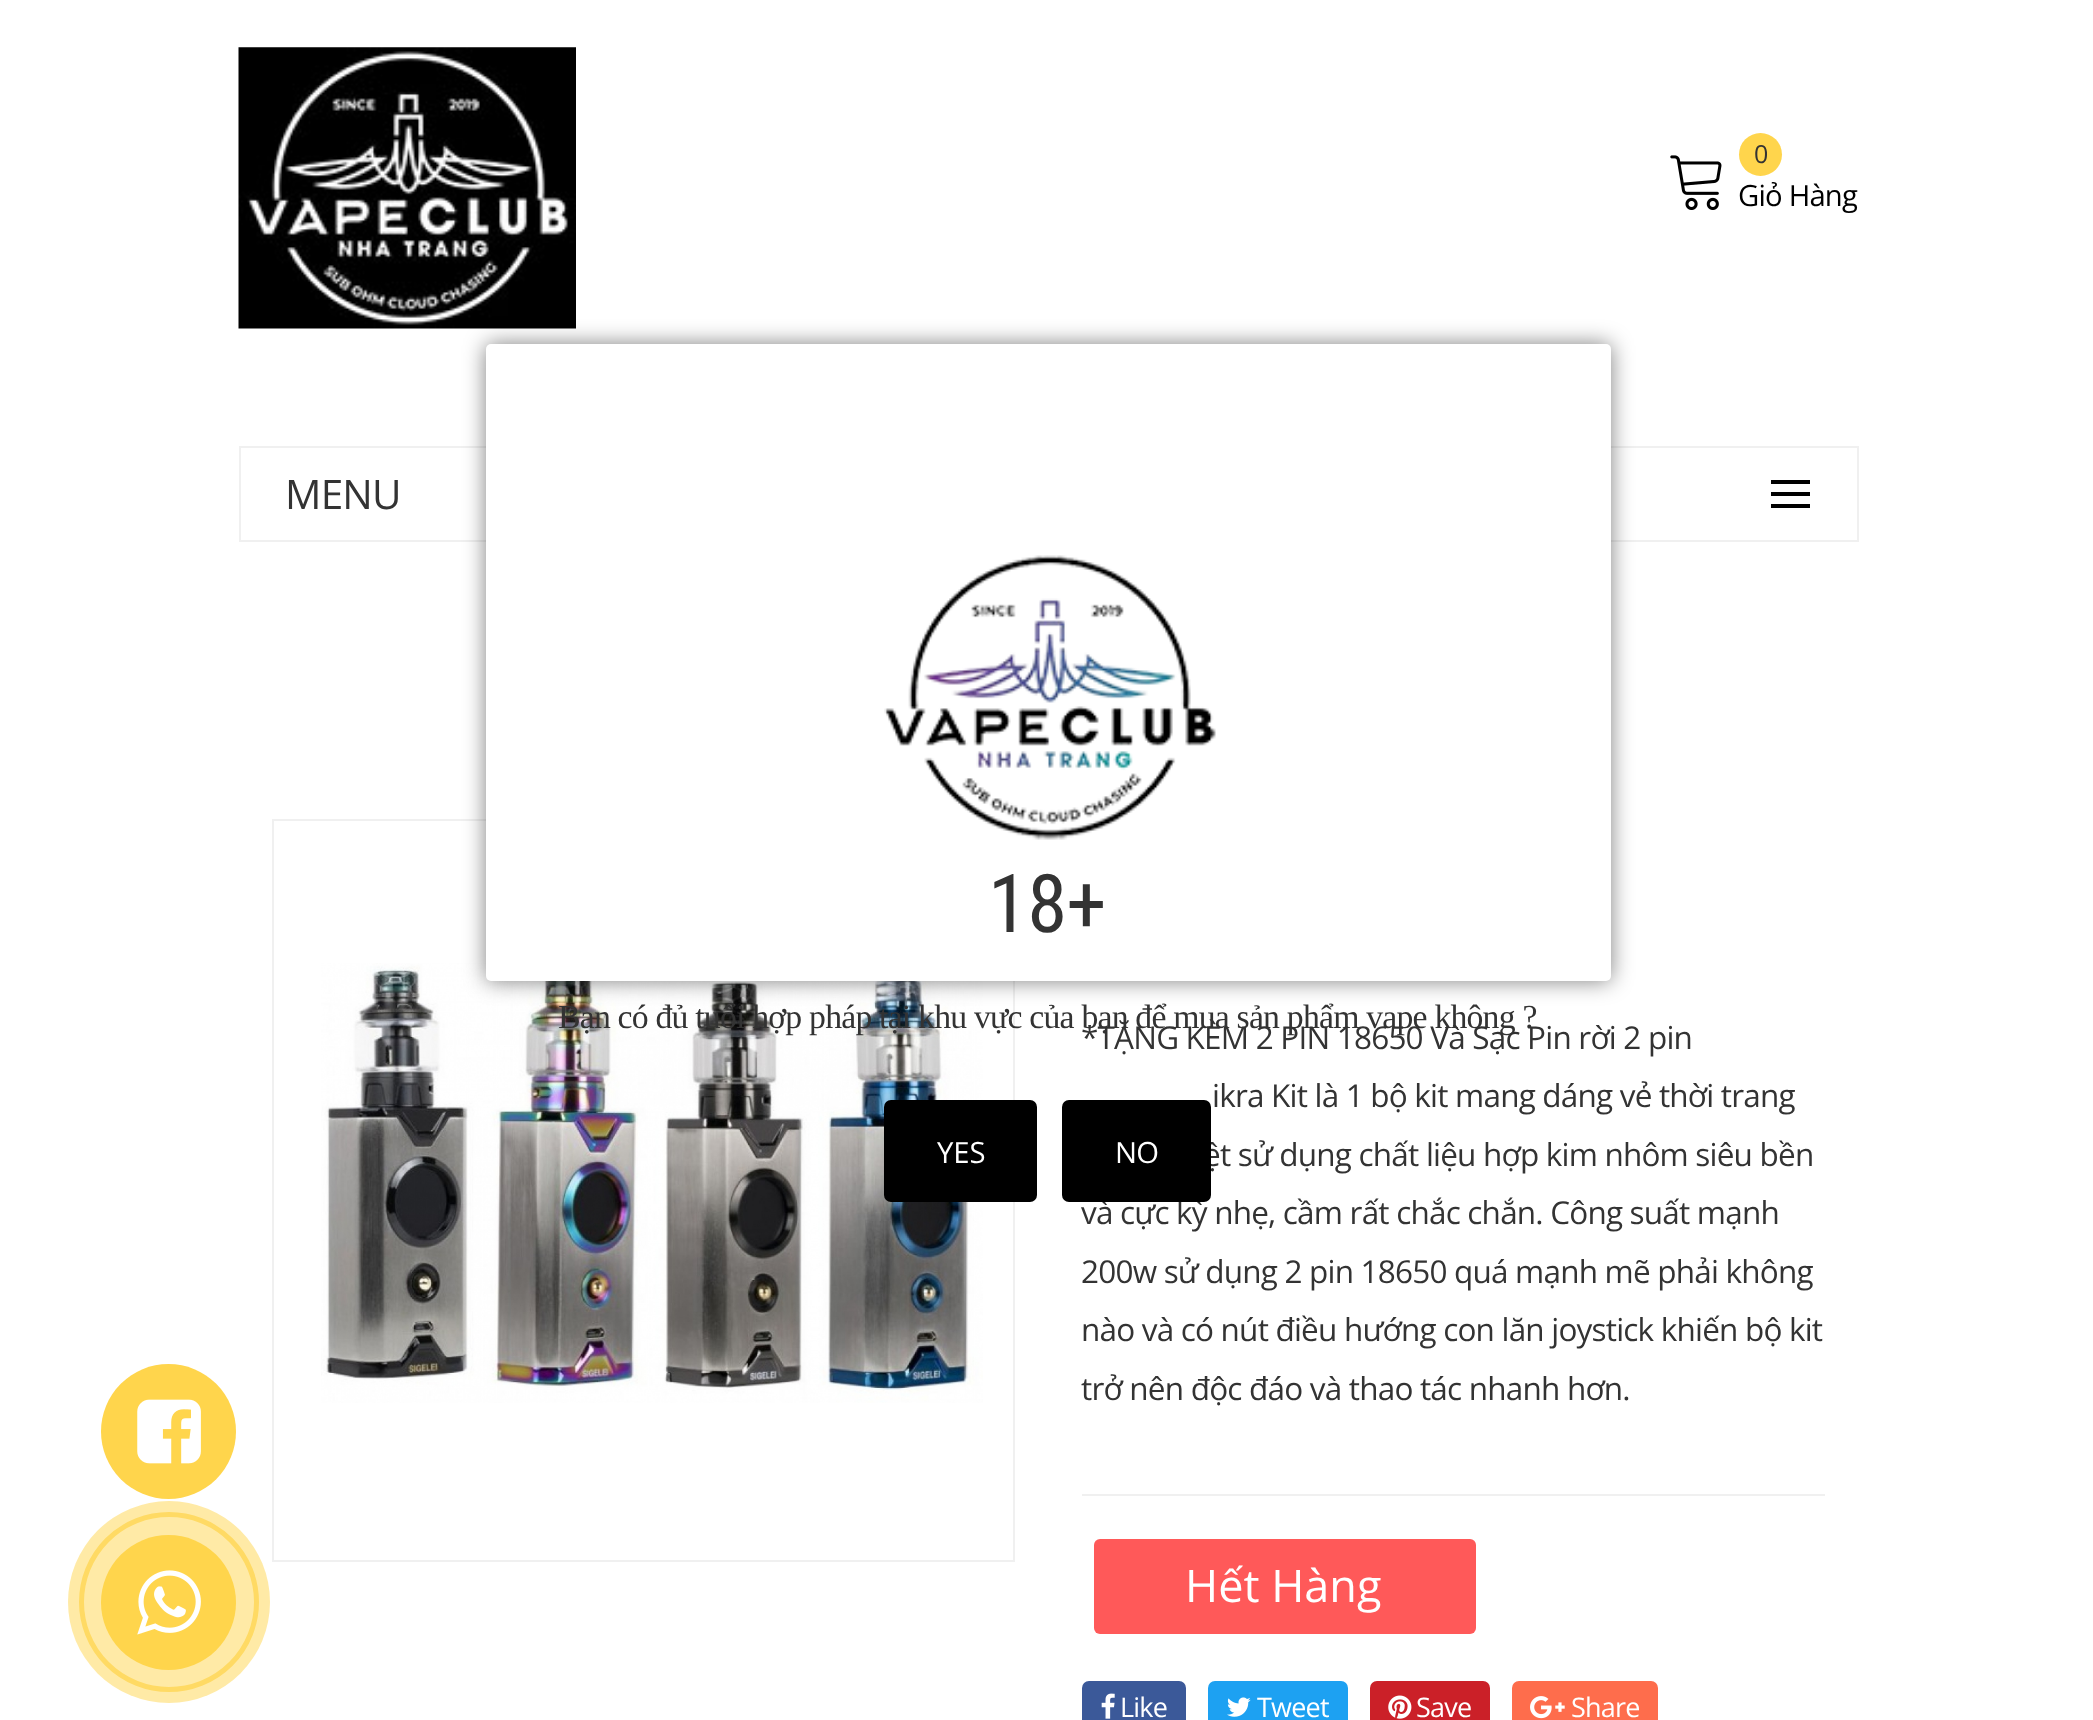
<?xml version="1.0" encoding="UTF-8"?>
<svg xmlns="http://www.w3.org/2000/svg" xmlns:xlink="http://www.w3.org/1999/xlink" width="2093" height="1720">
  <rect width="100%" height="100%" fill="#ffffff" />
  <image x="238" y="47" width="338" height="282" xlink:href="image1.png" />
  <circle cx="1760.5" cy="154.5" r="21.5" fill="#ffd54c" />
  <image x="1670" y="155" width="52" height="55" xlink:href="image2.png" />
  <rect x="240" y="447" width="1618" height="94" fill="none" stroke="#f0f0f0" stroke-width="2" />
  <path d="M 1771 496 v -4 h 39 v 4 z m 0 -12 v -4 h 39 v 4 z m 0 24 v -4 h 39 v 4 z" fill="#000000" />
  <rect x="273" y="820" width="741" height="741" fill="none" stroke="#f0f0f0" stroke-width="2" />
  <image x="321" y="963" width="662" height="440" xlink:href="image6.png" />
  <rect x="486" y="344" width="1125" height="637" rx="5" fill="#000000" fill-opacity="0.5" filter="blur(11px)" />
  <rect x="486" y="344" width="1125" height="637" rx="5" fill="#ffffff" />
  <image x="884" y="555" width="332" height="285" xlink:href="image3.png" />
  <rect x="884" y="1100" width="153" height="102" rx="7" fill="#000000" />
  <circle cx="168.5" cy="1431.5" r="67.5" fill="#ffd54c" />
  <image x="137" y="1399" width="64" height="65" xlink:href="image4.png" />
  <circle cx="169" cy="1602" r="87.5" fill="none" stroke="#ffe180" stroke-width="5" />
  <circle cx="169" cy="1602" r="101" fill="#ffd344" fill-opacity="0.48" />
  <circle cx="168.5" cy="1602.5" r="67.5" fill="#ffd54c" />
  <image x="137" y="1570" width="64" height="65" xlink:href="image5.png" />
  <rect x="1082" y="1494" width="743" height="2" fill="#f0f0f0" />
  <rect x="1094" y="1539" width="382" height="95" rx="6" fill="#ff5959" />
  <rect x="1082" y="1681" width="104" height="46" rx="7" fill="#3b5999" />
  <image x="1101" y="1693" width="14" height="26" xlink:href="image7.png" />
  <rect x="1208" y="1681" width="140" height="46" rx="7" fill="#1da1f2" />
  <image x="1227" y="1697" width="24" height="20" xlink:href="image8.png" />
  <rect x="1370" y="1681" width="120" height="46" rx="7" fill="#cb2028" />
  <image x="1388" y="1695" width="24" height="24" xlink:href="image9.png" />
  <rect x="1512" y="1681" width="146" height="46" rx="7" fill="#fe6d4c" />
  <image x="1530" y="1696" width="35" height="23" xlink:href="image10.png" />
  <text x="1754" y="163" style="font-family: Open Sans; font-size: 25px; letter-spacing: -0.8px; fill: #333333">0</text>
  <text x="1738" y="206" style="font-family: Open Sans; font-size: 29.25px; letter-spacing: -0.8px; fill: #000000">Giỏ Hàng</text>
  <text x="285" y="509" style="font-family: Open Sans; font-size: 40.5px; letter-spacing: -0.8px; fill: #333333">MENU</text>
  <text x="988" y="932" style="font-family: Roboto Condensed; font-size: 81px; letter-spacing: -0.8px; fill: #333333">18+</text>
  <text x="937" y="1163" style="font-family: Open Sans; font-size: 29.25px; fill: #ffffff">YES</text>
  <text x="1081" y="1049" style="font-family: Open Sans; font-size: 31.5px; letter-spacing: -0.8px; fill: #333333">*TẶNG KÈM 2 PIN 18650 Và Sạc Pin rời 2 pin</text>
  <text x="558" y="1028" style="font-family: Liberation Serif; font-size: 33.75px; letter-spacing: -0.8px; fill: #333333">Bạn có đủ tuổi hợp pháp tại khu vực của bạn để mua sản phẩm vape không ?</text>
  <text x="1212" y="1107" style="font-family: Open Sans; font-size: 31.5px; letter-spacing: -0.8px; fill: #333333">ikra Kit là 1 bộ kit mang dáng vẻ thời trang</text>
  <text x="1203" y="1166" style="font-family: Open Sans; font-size: 31.5px; letter-spacing: -0.8px; fill: #333333">ệt sử dụng chất liệu hợp kim nhôm siêu bền</text>
  <text x="1081" y="1224" style="font-family: Open Sans; font-size: 31.5px; letter-spacing: -0.8px; fill: #333333">và cực kỳ nhẹ, cầm rất chắc chắn. Công suất mạnh</text>
  <rect x="1062" y="1100" width="149" height="102" rx="7" fill="#000000" />
  <text x="1115" y="1163" style="font-family: Open Sans; font-size: 29.25px; letter-spacing: -0.8px; fill: #ffffff">NO</text>
  <text x="1081" y="1283" style="font-family: Open Sans; font-size: 31.5px; letter-spacing: -0.8px; fill: #333333">200w sử dụng 2 pin 18650 quá mạnh mẽ phải không</text>
  <text x="1081" y="1341" style="font-family: Open Sans; font-size: 31.5px; letter-spacing: -0.8px; fill: #333333">nào và có nút điều hướng con lăn joystick khiến bộ kit</text>
  <text x="1081" y="1400" style="font-family: Open Sans; font-size: 31.5px; letter-spacing: -0.8px; fill: #333333">trở nên độc đáo và thao tác nhanh hơn.</text>
  <text x="1185" y="1602" style="font-family: Open Sans; font-size: 45px; fill: #ffffff">Hết Hàng</text>
  <text x="1120" y="1717" style="font-family: Open Sans; font-size: 27px; letter-spacing: -0.8px; fill: #ffffff">Like</text>
  <text x="1257" y="1717" style="font-family: Open Sans; font-size: 27px; letter-spacing: -0.8px; fill: #ffffff">Tweet</text>
  <text x="1416" y="1717" style="font-family: Open Sans; font-size: 27px; letter-spacing: -0.8px; fill: #ffffff">Save</text>
  <text x="1571" y="1717" style="font-family: Open Sans; font-size: 27px; letter-spacing: -0.8px; fill: #ffffff">Share</text>
</svg>
